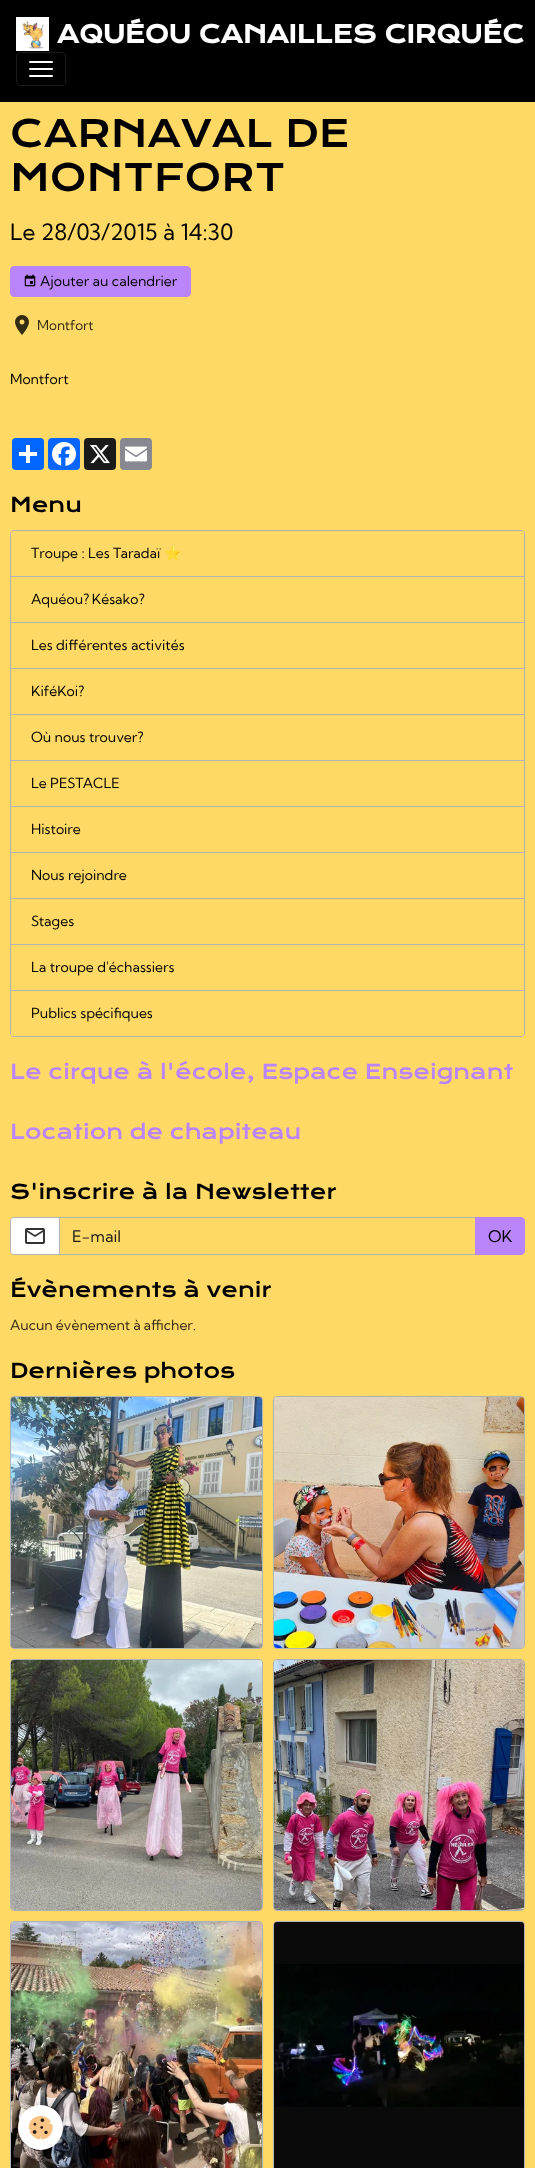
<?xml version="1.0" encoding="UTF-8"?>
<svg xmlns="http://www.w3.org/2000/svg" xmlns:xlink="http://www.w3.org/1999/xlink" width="535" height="2168">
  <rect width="100%" height="100%" fill="#ffd966" />
  <rect width="535" height="102" fill="#000000" />
  <image x="16" y="17" width="33" height="34" xlink:href="image1.png" />
  <rect x="16.5" y="52.5" width="49" height="33" rx="3.5" fill="none" stroke="#1a1a1a" />
  <rect x="29" y="61" width="24" height="2" rx="1" fill="#ffffff" />
  <rect x="29" y="68" width="24" height="2" rx="1" fill="#ffffff" />
  <rect x="29" y="75" width="24" height="2" rx="1" fill="#ffffff" />
  <rect x="10.5" y="266.5" width="180" height="30" rx="3.5" fill="#bb85fa" stroke="#bb85fa" />
  <image x="24" y="274" width="12" height="13" xlink:href="image2.png" />
  <image x="15" y="315" width="14" height="20" xlink:href="image3.png" />
  <rect x="12" y="438" width="32" height="32" rx="4" fill="#0166ff" />
  <rect x="26" y="445" width="4" height="18" fill="#ffffff" />
  <rect x="19" y="452" width="18" height="4" fill="#ffffff" />
  <rect x="48" y="438" width="32" height="32" rx="4" fill="#0866ff" />
  <image x="52" y="442" width="24" height="24" xlink:href="image4.png" />
  <rect x="84" y="438" width="32" height="32" rx="4" fill="#1a1a1a" />
  <image x="90" y="445" width="20" height="19" xlink:href="image5.png" />
  <rect x="120" y="438" width="32" height="32" rx="4" fill="#888990" />
  <image x="125" y="446" width="22" height="16" xlink:href="image6.png" />
  <path d="M 14 530.5 h 507 c 2 0 3.5 1.5 3.5 3.5 v 42.5 h -514 v -42.5 c 0 -2 1.5 -3.5 3.5 -3.5 z" fill="none" stroke="#b3b3b3" />
  <rect x="10.5" y="576.5" width="514" height="46" fill="none" stroke="#b3b3b3" />
  <rect x="10.5" y="622.5" width="514" height="46" fill="none" stroke="#b3b3b3" />
  <rect x="10.5" y="668.5" width="514" height="46" fill="none" stroke="#b3b3b3" />
  <rect x="10.5" y="714.5" width="514" height="46" fill="none" stroke="#b3b3b3" />
  <rect x="10.5" y="760.5" width="514" height="46" fill="none" stroke="#b3b3b3" />
  <rect x="10.5" y="806.5" width="514" height="46" fill="none" stroke="#b3b3b3" />
  <rect x="10.5" y="852.5" width="514" height="46" fill="none" stroke="#b3b3b3" />
  <rect x="10.5" y="898.5" width="514" height="46" fill="none" stroke="#b3b3b3" />
  <rect x="10.5" y="944.5" width="514" height="46" fill="none" stroke="#b3b3b3" />
  <path d="M 10.5 990.5 h 514 v 42.5 c 0 2 -1.5 3.5 -3.5 3.5 h -507 c -2 0 -3.5 -1.5 -3.5 -3.5 z" fill="none" stroke="#b3b3b3" />
  <path d="M 14 1217.5 h 45.5 v 37 h -45.5 c -2 0 -3.5 -1.5 -3.5 -3.5 v -30 c 0 -2 1.5 -3.5 3.5 -3.5 z" fill="#ffffff" stroke="#b3b3b3" />
  <image x="25" y="1228" width="20" height="16" xlink:href="image7.png" />
  <rect x="59.5" y="1217.5" width="416" height="37" fill="none" stroke="#b3b3b3" />
  <path d="M 475.5 1217.5 h 45.5 c 2 0 3.5 1.5 3.5 3.5 v 30 c 0 2 -1.5 3.5 -3.5 3.5 h -45.5 z" fill="#bb85fa" stroke="#bb85fa" />
  <rect x="10.5" y="1396.5" width="252" height="252" rx="3.5" fill="none" stroke="#b3b3b3" />
  <image x="11" y="1397" width="251" height="251" xlink:href="image8.png" />
  <rect x="273.5" y="1396.5" width="251" height="252" rx="3.5" fill="none" stroke="#b3b3b3" />
  <image x="274" y="1397" width="250" height="251" xlink:href="image9.png" />
  <rect x="10.5" y="1659.5" width="252" height="251" rx="3.5" fill="none" stroke="#b3b3b3" />
  <image x="11" y="1660" width="251" height="250" xlink:href="image10.png" />
  <rect x="273.5" y="1659.5" width="251" height="251" rx="3.5" fill="none" stroke="#b3b3b3" />
  <image x="274" y="1660" width="250" height="250" xlink:href="image11.png" />
  <rect x="10.5" y="1921.5" width="252" height="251" rx="3.5" fill="none" stroke="#b3b3b3" />
  <image x="11" y="1922" width="251" height="246" xlink:href="image12.png" />
  <rect x="273.5" y="1921.5" width="251" height="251" rx="3.5" fill="none" stroke="#b3b3b3" />
  <image x="274" y="1922" width="250" height="246" xlink:href="image13.png" />
  <rect x="18" y="2108" width="45" height="45" rx="22.5" fill="#000000" fill-opacity="0.24" filter="blur(5px)" />
  <circle cx="40.5" cy="2127.5" r="22.5" fill="#ffffff" />
  <image x="28" y="2115" width="25" height="25" xlink:href="image14.png" />
  <text x="57" y="43" style="font-family: Krona One; font-size: 24px; font-weight: bold; fill: #ffffff">AQUÉOU CANAILLES CIRQUÉC</text>
  <text x="10" y="147" style="font-family: Krona One; font-size: 36.75px; fill: #000000">CARNAVAL DE</text>
  <text x="10" y="191" style="font-family: Krona One; font-size: 36.75px; fill: #000000">MONTFORT</text>
  <text x="10" y="240" style="font-family: Kumbh Sans; font-size: 22.5px; fill: #000000">Le 28/03/2015 à 14:30</text>
  <text x="40" y="286" style="font-family: Kumbh Sans; font-size: 14px; fill: #000000">Ajouter au calendrier</text>
  <text x="37" y="330" style="font-family: Kumbh Sans; font-size: 13.5px; fill: #332b14">Montfort</text>
  <text x="10" y="384" style="font-family: Kumbh Sans; font-size: 14px; fill: #000000">Montfort</text>
  <text x="10" y="512" style="font-family: Krona One; font-size: 20px; fill: #000000">Menu</text>
  <text x="31" y="558" style="font-family: Kumbh Sans; font-size: 14px; fill: #000000">Troupe : Les Taradaï</text>
  <text x="164" y="558" style="font-family: Noto Color Emoji; font-size: 14px; fill: #000000">⭐️</text>
  <text x="31" y="604" word-spacing="-1" style="font-family: Kumbh Sans; font-size: 14px; fill: #000000">Aquéou? Késako?</text>
  <text x="31" y="650" style="font-family: Kumbh Sans; font-size: 14px; fill: #000000">Les différentes activités</text>
  <text x="31" y="696" style="font-family: Kumbh Sans; font-size: 14px; fill: #000000">KiféKoi?</text>
  <text x="31" y="742" style="font-family: Kumbh Sans; font-size: 14px; fill: #000000">Où nous trouver?</text>
  <text x="31" y="788" style="font-family: Kumbh Sans; font-size: 14px; fill: #000000">Le PESTACLE</text>
  <text x="31" y="834" style="font-family: Kumbh Sans; font-size: 14px; fill: #000000">Histoire</text>
  <text x="31" y="880" style="font-family: Kumbh Sans; font-size: 14px; fill: #000000">Nous rejoindre</text>
  <text x="31" y="926" style="font-family: Kumbh Sans; font-size: 14px; fill: #000000">Stages</text>
  <text x="31" y="972" style="font-family: Kumbh Sans; font-size: 14px; fill: #000000">La troupe d'échassiers</text>
  <text x="31" y="1018" style="font-family: Kumbh Sans; font-size: 14px; fill: #000000">Publics spécifiques</text>
  <text x="10" y="1079" style="font-family: Krona One; font-size: 20px; fill: #bb85fa">Le cirque à l'école, Espace Enseignant</text>
  <text x="10" y="1139" style="font-family: Krona One; font-size: 20px; fill: #bb85fa">Location de chapiteau</text>
  <text x="10" y="1199" style="font-family: Krona One; font-size: 20px; fill: #000000">S'inscrire à la Newsletter</text>
  <text x="72" y="1242" style="font-family: Kumbh Sans; font-size: 16px; fill: #1a1a1a">E-mail</text>
  <text x="488" y="1242" style="font-family: Kumbh Sans; font-size: 16px; fill: #000000">OK</text>
  <text x="10" y="1297" style="font-family: Krona One; font-size: 20px; fill: #000000">Évènements à venir</text>
  <text x="10" y="1330" word-spacing="-0.5" style="font-family: Kumbh Sans; font-size: 14px; fill: #332b14">Aucun évènement à afficher.</text>
  <text x="10" y="1378" style="font-family: Krona One; font-size: 20px; fill: #000000">Dernières photos</text>
</svg>
